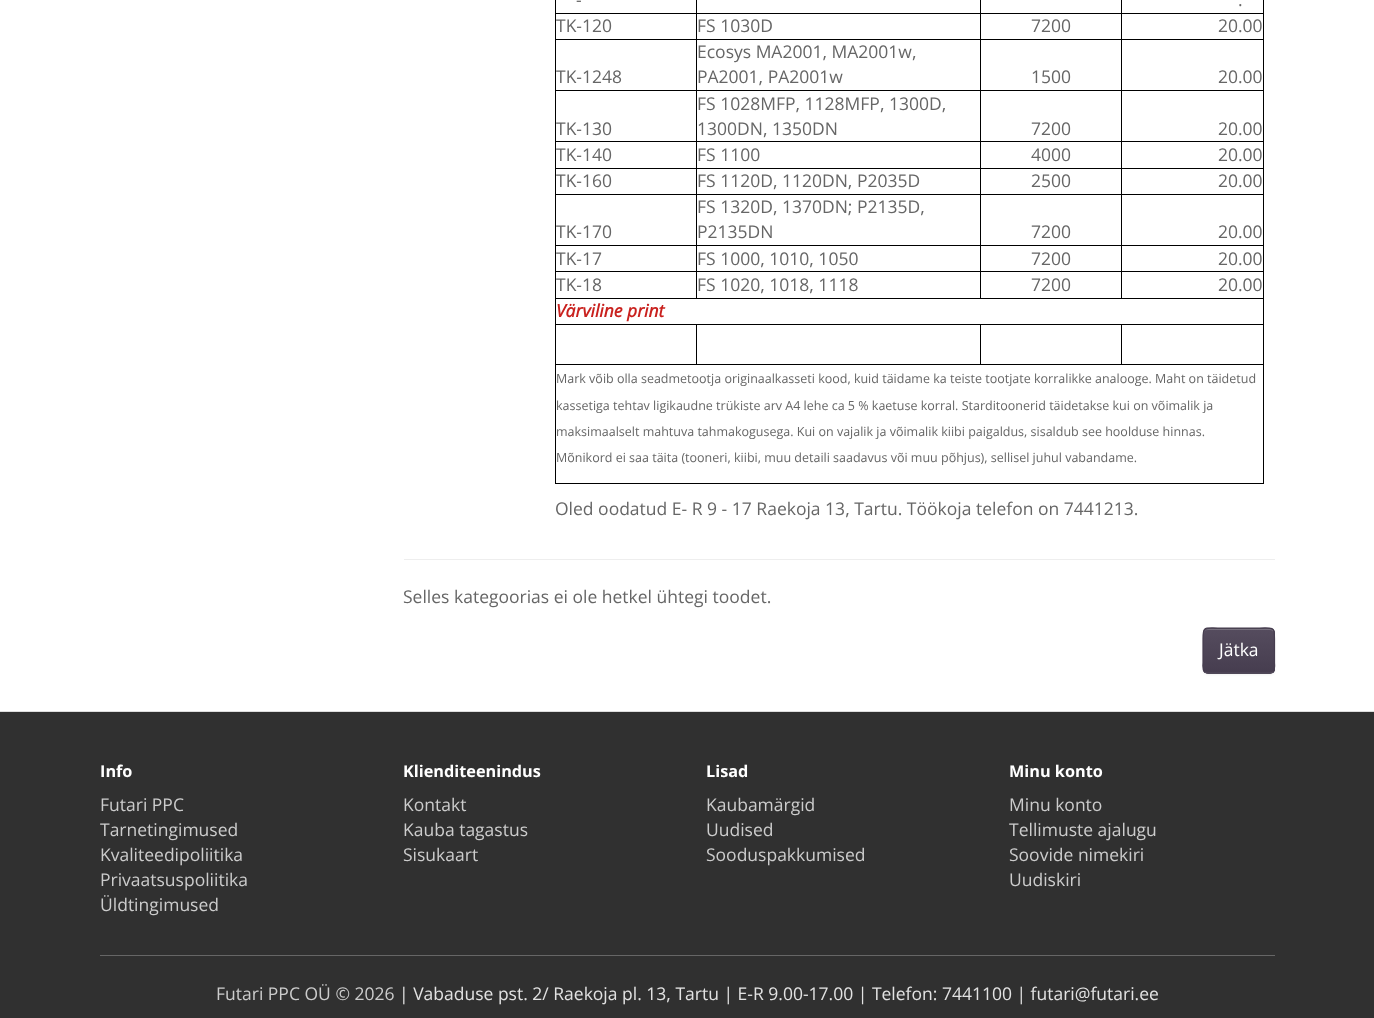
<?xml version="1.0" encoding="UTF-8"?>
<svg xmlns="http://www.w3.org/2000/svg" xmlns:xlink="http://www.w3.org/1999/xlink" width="1374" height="1018">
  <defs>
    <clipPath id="clip1"><rect x="1203" y="628" width="72" height="46" rx="5" /></clipPath>
    <linearGradient id="g1" gradientUnits="userSpaceOnUse" x1="1239" y1="629" x2="1239" y2="673"><stop offset="0" stop-color="#554c5e" /><stop offset="1" stop-color="#463d4f" /></linearGradient>
  </defs>
  <rect width="100%" height="100%" fill="#ffffff" />
  <rect x="1121" y="13" width="143" height="1" fill="#000000" />
  <rect x="1121" y="39" width="143" height="1" fill="#000000" />
  <rect x="1121" y="90" width="143" height="1" fill="#000000" />
  <rect x="1121" y="141" width="143" height="1" fill="#000000" />
  <rect x="1121" y="168" width="143" height="1" fill="#000000" />
  <rect x="1121" y="194" width="143" height="1" fill="#000000" />
  <rect x="1121" y="245" width="143" height="1" fill="#000000" />
  <rect x="1121" y="271" width="143" height="1" fill="#000000" />
  <rect x="555" y="298" width="709" height="1" fill="#000000" />
  <rect x="1121" y="271" width="1" height="28" fill="#000000" />
  <rect x="980" y="271" width="143" height="1" fill="#000000" />
  <rect x="1121" y="245" width="1" height="28" fill="#000000" />
  <rect x="980" y="245" width="143" height="1" fill="#000000" />
  <rect x="1121" y="194" width="1" height="52" fill="#000000" />
  <rect x="980" y="194" width="143" height="1" fill="#000000" />
  <rect x="1121" y="168" width="1" height="27" fill="#000000" />
  <rect x="980" y="168" width="143" height="1" fill="#000000" />
  <rect x="1121" y="141" width="1" height="28" fill="#000000" />
  <rect x="980" y="141" width="143" height="1" fill="#000000" />
  <rect x="1121" y="90" width="1" height="53" fill="#000000" />
  <rect x="980" y="90" width="143" height="1" fill="#000000" />
  <rect x="1121" y="39" width="1" height="52" fill="#000000" />
  <rect x="980" y="39" width="143" height="1" fill="#000000" />
  <rect x="1121" y="13" width="1" height="27" fill="#000000" />
  <rect x="980" y="13" width="143" height="1" fill="#000000" />
  <rect x="980" y="271" width="1" height="28" fill="#000000" />
  <rect x="696" y="271" width="285" height="1" fill="#000000" />
  <rect x="980" y="245" width="1" height="28" fill="#000000" />
  <rect x="696" y="245" width="285" height="1" fill="#000000" />
  <rect x="980" y="194" width="1" height="52" fill="#000000" />
  <rect x="696" y="194" width="285" height="1" fill="#000000" />
  <rect x="980" y="168" width="1" height="27" fill="#000000" />
  <rect x="696" y="168" width="285" height="1" fill="#000000" />
  <rect x="980" y="141" width="1" height="28" fill="#000000" />
  <rect x="696" y="141" width="285" height="1" fill="#000000" />
  <rect x="980" y="90" width="1" height="53" fill="#000000" />
  <rect x="696" y="90" width="285" height="1" fill="#000000" />
  <rect x="980" y="39" width="1" height="52" fill="#000000" />
  <rect x="696" y="39" width="285" height="1" fill="#000000" />
  <rect x="980" y="13" width="1" height="27" fill="#000000" />
  <rect x="696" y="13" width="285" height="1" fill="#000000" />
  <rect x="696" y="271" width="1" height="28" fill="#000000" />
  <rect x="555" y="271" width="143" height="1" fill="#000000" />
  <rect x="696" y="245" width="1" height="28" fill="#000000" />
  <rect x="555" y="245" width="143" height="1" fill="#000000" />
  <rect x="696" y="194" width="1" height="52" fill="#000000" />
  <rect x="555" y="194" width="143" height="1" fill="#000000" />
  <rect x="696" y="168" width="1" height="27" fill="#000000" />
  <rect x="555" y="168" width="143" height="1" fill="#000000" />
  <rect x="696" y="141" width="1" height="28" fill="#000000" />
  <rect x="555" y="141" width="143" height="1" fill="#000000" />
  <rect x="696" y="90" width="1" height="53" fill="#000000" />
  <rect x="555" y="90" width="143" height="1" fill="#000000" />
  <rect x="696" y="39" width="1" height="52" fill="#000000" />
  <rect x="555" y="39" width="143" height="1" fill="#000000" />
  <rect x="696" y="13" width="1" height="27" fill="#000000" />
  <rect x="555" y="13" width="143" height="1" fill="#000000" />
  <rect x="696" width="1" height="14" fill="#000000" />
  <rect x="980" width="1" height="14" fill="#000000" />
  <rect x="1121" width="1" height="14" fill="#000000" />
  <rect x="1121" y="324" width="143" height="1" fill="#000000" />
  <rect x="555" y="364" width="709" height="1" fill="#000000" />
  <rect x="1121" y="324" width="1" height="41" fill="#000000" />
  <rect x="980" y="324" width="143" height="1" fill="#000000" />
  <rect x="980" y="324" width="1" height="41" fill="#000000" />
  <rect x="696" y="324" width="285" height="1" fill="#000000" />
  <rect x="696" y="324" width="1" height="41" fill="#000000" />
  <rect x="555" y="324" width="143" height="1" fill="#000000" />
  <rect x="1263" y="364" width="1" height="120" fill="#000000" />
  <rect x="555" y="483" width="709" height="1" fill="#000000" />
  <rect x="555" y="364" width="1" height="120" fill="#000000" />
  <rect x="555" y="324" width="1" height="41" fill="#000000" />
  <rect x="555" y="298" width="1" height="27" fill="#000000" />
  <rect x="555" y="271" width="1" height="28" fill="#000000" />
  <rect x="555" y="245" width="1" height="28" fill="#000000" />
  <rect x="555" y="194" width="1" height="52" fill="#000000" />
  <rect x="555" y="168" width="1" height="27" fill="#000000" />
  <rect x="555" y="141" width="1" height="28" fill="#000000" />
  <rect x="555" y="90" width="1" height="53" fill="#000000" />
  <rect x="555" y="39" width="1" height="52" fill="#000000" />
  <rect x="555" width="1" height="40" fill="#000000" />
  <rect x="1263" y="324" width="1" height="41" fill="#000000" />
  <rect x="1263" y="298" width="1" height="27" fill="#000000" />
  <rect x="1263" y="271" width="1" height="28" fill="#000000" />
  <rect x="1263" y="245" width="1" height="28" fill="#000000" />
  <rect x="1263" y="194" width="1" height="52" fill="#000000" />
  <rect x="1263" y="168" width="1" height="27" fill="#000000" />
  <rect x="1263" y="141" width="1" height="28" fill="#000000" />
  <rect x="1263" y="90" width="1" height="53" fill="#000000" />
  <rect x="1263" y="39" width="1" height="52" fill="#000000" />
  <rect x="1263" width="1" height="40" fill="#000000" />
  <rect x="404" y="559" width="871" height="1" fill="#eeeeee" />
  <rect x="1203" y="629" width="72" height="46" rx="5" fill="#000000" fill-opacity="0.05" filter="blur(1px)" />
  <rect x="1203" y="628" width="72" height="46" rx="5" fill="#4d4654" />
  <g clip-path="url(#clip1)">
    <rect x="1203" y="629" width="72" height="44" fill="url(#g1)" />
  </g>
  <path d="M 1208 630 h 62 c 2 0 4 2 4 4 c 0 -7 -9 -5 -14 -5 h -42 c -5 0 -14 -2 -14 5 c 0 -2 1 -4 4 -4 z" fill="#77707e" />
  <path d="M 1273 672 l -2.5 1 h -63.5 l -2.5 -1" fill="none" stroke="#554c5e" stroke-width="1.2" />
  <path d="M 1204.5 672 c -2.5 -2.5 -1.5 -7 -1.5 -9.5 v -24 c 0 -12.5 1.5 -10.5 15 -10.5 h 41.5 c 13.5 0 15 -2 15 10.5 v 24 c 0 2.5 1 7 -1.5 9.5" fill="none" stroke="#463d4f" stroke-width="1.2" />
  <rect y="712" width="1374" height="306" fill="#303030" />
  <rect y="711" width="1374" height="1" fill="#dddddd" />
  <rect x="100" y="955" width="1175" height="1" fill="#666666" />
  <text x="576" y="6" style="font-family: Open Sans; font-size: 17.5px; fill: #666666">-</text>
  <text x="1238" y="6" style="font-family: Open Sans; font-size: 17.5px; fill: #666666">.</text>
  <text x="556" y="32" style="font-family: Open Sans; font-size: 17.5px; fill: #666666">TK-120</text>
  <text x="697" y="32" style="font-family: Open Sans; font-size: 17.5px; fill: #666666">FS 1030D</text>
  <text x="1031" y="32" style="font-family: Open Sans; font-size: 17.5px; fill: #666666">7200</text>
  <text x="1218" y="32" style="font-family: Open Sans; font-size: 17.5px; fill: #666666">20.00</text>
  <text x="556" y="83" style="font-family: Open Sans; font-size: 17.5px; fill: #666666">TK-1248</text>
  <text x="697" y="58" style="font-family: Open Sans; font-size: 17.5px; fill: #666666">Ecosys MA2001, MA2001w,</text>
  <text x="697" y="83" style="font-family: Open Sans; font-size: 17.5px; fill: #666666">PA2001, PA2001w</text>
  <text x="1031" y="83" style="font-family: Open Sans; font-size: 17.5px; fill: #666666">1500</text>
  <text x="1218" y="83" style="font-family: Open Sans; font-size: 17.5px; fill: #666666">20.00</text>
  <text x="556" y="135" style="font-family: Open Sans; font-size: 17.5px; fill: #666666">TK-130</text>
  <text x="697" y="110" style="font-family: Open Sans; font-size: 17.5px; fill: #666666">FS 1028MFP, 1128MFP, 1300D,</text>
  <text x="697" y="135" style="font-family: Open Sans; font-size: 17.5px; fill: #666666">1300DN, 1350DN</text>
  <text x="1031" y="135" style="font-family: Open Sans; font-size: 17.5px; fill: #666666">7200</text>
  <text x="1218" y="135" style="font-family: Open Sans; font-size: 17.5px; fill: #666666">20.00</text>
  <text x="556" y="161" style="font-family: Open Sans; font-size: 17.5px; fill: #666666">TK-140</text>
  <text x="697" y="161" style="font-family: Open Sans; font-size: 17.5px; fill: #666666">FS 1100</text>
  <text x="1031" y="161" style="font-family: Open Sans; font-size: 17.5px; fill: #666666">4000</text>
  <text x="1218" y="161" style="font-family: Open Sans; font-size: 17.5px; fill: #666666">20.00</text>
  <text x="556" y="187" style="font-family: Open Sans; font-size: 17.5px; fill: #666666">TK-160</text>
  <text x="697" y="187" style="font-family: Open Sans; font-size: 17.5px; fill: #666666">FS 1120D, 1120DN, P2035D</text>
  <text x="1031" y="187" style="font-family: Open Sans; font-size: 17.5px; fill: #666666">2500</text>
  <text x="1218" y="187" style="font-family: Open Sans; font-size: 17.5px; fill: #666666">20.00</text>
  <text x="556" y="238" style="font-family: Open Sans; font-size: 17.5px; fill: #666666">TK-170</text>
  <text x="697" y="213" style="font-family: Open Sans; font-size: 17.5px; fill: #666666">FS 1320D, 1370DN; P2135D,</text>
  <text x="697" y="238" style="font-family: Open Sans; font-size: 17.5px; fill: #666666">P2135DN</text>
  <text x="1031" y="238" style="font-family: Open Sans; font-size: 17.5px; fill: #666666">7200</text>
  <text x="1218" y="238" style="font-family: Open Sans; font-size: 17.5px; fill: #666666">20.00</text>
  <text x="556" y="265" style="font-family: Open Sans; font-size: 17.5px; fill: #666666">TK-17</text>
  <text x="697" y="265" style="font-family: Open Sans; font-size: 17.5px; fill: #666666">FS 1000, 1010, 1050</text>
  <text x="1031" y="265" style="font-family: Open Sans; font-size: 17.5px; fill: #666666">7200</text>
  <text x="1218" y="265" style="font-family: Open Sans; font-size: 17.5px; fill: #666666">20.00</text>
  <text x="556" y="291" style="font-family: Open Sans; font-size: 17.5px; fill: #666666">TK-18</text>
  <text x="697" y="291" style="font-family: Open Sans; font-size: 17.5px; fill: #666666">FS 1020, 1018, 1118</text>
  <text x="1031" y="291" style="font-family: Open Sans; font-size: 17.5px; fill: #666666">7200</text>
  <text x="1218" y="291" style="font-family: Open Sans; font-size: 17.5px; fill: #666666">20.00</text>
  <text x="556" y="317" style="font-family: Open Sans; font-size: 17.5px; font-weight: bold; font-style: italic; fill: #c9211e">Värviline print</text>
  <text x="556" y="383" style="font-family: Open Sans; font-size: 12.5px; fill: #666666">Mark võib olla seadmetootja originaalkasseti kood, kuid täidame ka teiste tootjate korralikke analooge. Maht on täidetud</text>
  <text x="556" y="410" style="font-family: Open Sans; font-size: 12.5px; fill: #666666">kassetiga tehtav ligikaudne trükiste arv A4 lehe ca 5 % kaetuse korral. Starditoonerid täidetakse kui on võimalik ja</text>
  <text x="556" y="436" style="font-family: Open Sans; font-size: 12.5px; fill: #666666">maksimaalselt mahtuva tahmakogusega. Kui on vajalik ja võimalik kiibi paigaldus, sisaldub see hoolduse hinnas.</text>
  <text x="556" y="462" style="font-family: Open Sans; font-size: 12.5px; fill: #666666">Mõnikord ei saa täita (tooneri, kiibi, muu detaili saadavus või muu põhjus), sellisel juhul vabandame.</text>
  <text x="555" y="515" style="font-family: Open Sans; font-size: 17.5px; fill: #666666">Oled oodatud E- R 9 - 17 Raekoja 13, Tartu. Töökoja telefon on 7441213.</text>
  <text x="403" y="603" style="font-family: Open Sans; font-size: 17.5px; fill: #666666">Selles kategoorias ei ole hetkel ühtegi toodet.</text>
  <text x="1219" y="656" style="font-family: Open Sans; font-size: 17.5px; fill: #ffffff">Jätka</text>
  <text x="100" y="777" style="font-family: Open Sans; font-size: 16.25px; font-weight: bold; fill: #ffffff">Info</text>
  <text x="100" y="811" style="font-family: Open Sans; font-size: 17.5px; fill: #cccccc">Futari PPC</text>
  <text x="100" y="836" style="font-family: Open Sans; font-size: 17.5px; fill: #cccccc">Tarnetingimused</text>
  <text x="100" y="861" style="font-family: Open Sans; font-size: 17.5px; fill: #cccccc">Kvaliteedipoliitika</text>
  <text x="100" y="886" style="font-family: Open Sans; font-size: 17.5px; fill: #cccccc">Privaatsuspoliitika</text>
  <text x="100" y="911" style="font-family: Open Sans; font-size: 17.5px; fill: #cccccc">Üldtingimused</text>
  <text x="403" y="777" style="font-family: Open Sans; font-size: 16.25px; font-weight: bold; fill: #ffffff">Klienditeenindus</text>
  <text x="403" y="811" style="font-family: Open Sans; font-size: 17.5px; fill: #cccccc">Kontakt</text>
  <text x="403" y="836" style="font-family: Open Sans; font-size: 17.5px; fill: #cccccc">Kauba tagastus</text>
  <text x="403" y="861" style="font-family: Open Sans; font-size: 17.5px; fill: #cccccc">Sisukaart</text>
  <text x="706" y="777" style="font-family: Open Sans; font-size: 16.25px; font-weight: bold; fill: #ffffff">Lisad</text>
  <text x="706" y="811" style="font-family: Open Sans; font-size: 17.5px; fill: #cccccc">Kaubamärgid</text>
  <text x="706" y="836" style="font-family: Open Sans; font-size: 17.5px; fill: #cccccc">Uudised</text>
  <text x="706" y="861" style="font-family: Open Sans; font-size: 17.5px; fill: #cccccc">Sooduspakkumised</text>
  <text x="1009" y="777" style="font-family: Open Sans; font-size: 16.25px; font-weight: bold; fill: #ffffff">Minu konto</text>
  <text x="1009" y="811" style="font-family: Open Sans; font-size: 17.5px; fill: #cccccc">Minu konto</text>
  <text x="1009" y="836" style="font-family: Open Sans; font-size: 17.5px; fill: #cccccc">Tellimuste ajalugu</text>
  <text x="1009" y="861" style="font-family: Open Sans; font-size: 17.5px; fill: #cccccc">Soovide nimekiri</text>
  <text x="1009" y="886" style="font-family: Open Sans; font-size: 17.5px; fill: #cccccc">Uudiskiri</text>
  <text x="216" y="1000" style="font-family: Open Sans; font-size: 17.5px; fill: #cccccc">Futari PPC OÜ © 2026</text>
  <text x="399" y="1000" style="font-family: Open Sans; font-size: 17.5px; fill: #e2e2e2">| Vabaduse pst. 2/ Raekoja pl. 13, Tartu | E-R 9.00-17.00 | Telefon: 7441100 | futari@futari.ee</text>
</svg>
